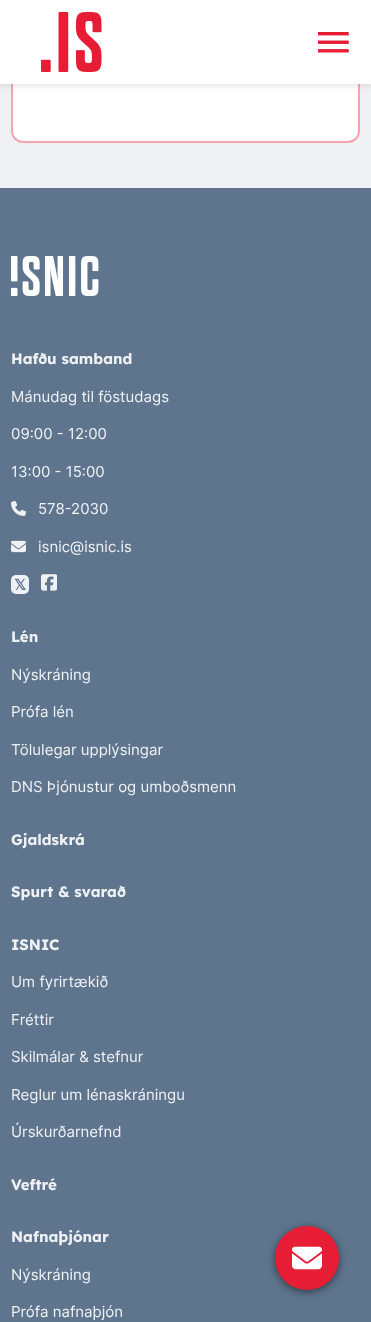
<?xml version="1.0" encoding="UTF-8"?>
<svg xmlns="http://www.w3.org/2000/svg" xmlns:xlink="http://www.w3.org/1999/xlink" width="371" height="1322">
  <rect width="100%" height="100%" fill="#eff1f4" />
  <path d="M 12 -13 h 336 c 6 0 11 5 11 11 v 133 c 0 6 -5 11 -11 11 h -325 c -6 0 -11 -5 -11 -11 z" fill="#ffffff" stroke="#f5a5af" stroke-width="2" />
  <rect x="-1" width="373" height="86" fill="#000000" fill-opacity="0.1" filter="blur(3.5px)" />
  <rect width="371" height="84" fill="#ffffff" />
  <image x="41" y="12" width="61" height="60" xlink:href="image1.png" />
  <image x="318" y="32" width="31" height="21" xlink:href="image2.png" />
  <rect y="188" width="371" height="1134" fill="#5f758e" />
  <image x="11" y="256" width="88" height="40" xlink:href="image3.png" />
  <image x="11" y="501" width="15" height="15" xlink:href="image4.png" />
  <image x="11" y="540" width="15" height="13" xlink:href="image5.png" />
  <rect x="11" y="575" width="18" height="19" rx="5" fill="#eff1f4" />
  <image x="41" y="574" width="16" height="17" xlink:href="image6.png" />
  <rect x="275" y="1228" width="64" height="64" rx="32" fill="#000000" fill-opacity="0.5" filter="blur(4px)" />
  <circle cx="307" cy="1258" r="32" fill="#e71d36" />
  <image x="292" y="1246" width="30" height="24" xlink:href="image7.png" />
  <text x="11" y="364" style="font-family: Lexend; font-size: 15px; font-weight: bold; fill: #eff1f4">Hafðu samband</text>
  <text x="11" y="402" style="font-family: Inter; font-size: 15px; fill: #eff1f4">Mánudag til föstudags</text>
  <text x="11" y="439" style="font-family: Inter; font-size: 15px; fill: #eff1f4">09:00 - 12:00</text>
  <text x="11" y="477" style="font-family: Inter; font-size: 15px; fill: #eff1f4">13:00 - 15:00</text>
  <text x="38" y="514" style="font-family: Inter; font-size: 15px; fill: #eff1f4">578-2030</text>
  <text x="38" y="552" style="font-family: Inter; font-size: 15px; fill: #eff1f4">isnic@isnic.is</text>
  <text x="14" y="590" style="font-family: DejaVu Sans; font-size: 15px; font-weight: bold; fill: #5f758e">𝕏</text>
  <text x="11" y="642" style="font-family: Lexend; font-size: 15px; font-weight: bold; fill: #eff1f4">Lén</text>
  <text x="11" y="680" style="font-family: Inter; font-size: 15px; fill: #eff1f4">Nýskráning</text>
  <text x="11" y="717" style="font-family: Inter; font-size: 15px; fill: #eff1f4">Prófa lén</text>
  <text x="11" y="755" style="font-family: Inter; font-size: 15px; fill: #eff1f4">Tölulegar upplýsingar</text>
  <text x="11" y="792" style="font-family: Inter; font-size: 15px; fill: #eff1f4">DNS Þjónustur og umboðsmenn</text>
  <text x="11" y="845" style="font-family: Lexend; font-size: 15px; font-weight: bold; fill: #eff1f4">Gjaldskrá</text>
  <text x="11" y="897" style="font-family: Lexend; font-size: 15px; font-weight: bold; fill: #eff1f4">Spurt &amp; svarað</text>
  <text x="11" y="950" style="font-family: Lexend; font-size: 15px; font-weight: bold; fill: #eff1f4">ISNIC</text>
  <text x="11" y="987" style="font-family: Inter; font-size: 15px; fill: #eff1f4">Um fyrirtækið</text>
  <text x="11" y="1025" style="font-family: Inter; font-size: 15px; fill: #eff1f4">Fréttir</text>
  <text x="11" y="1062" style="font-family: Inter; font-size: 15px; fill: #eff1f4">Skilmálar &amp; stefnur</text>
  <text x="11" y="1100" style="font-family: Inter; font-size: 15px; fill: #eff1f4">Reglur um lénaskráningu</text>
  <text x="11" y="1137" style="font-family: Inter; font-size: 15px; fill: #eff1f4">Úrskurðarnefnd</text>
  <text x="11" y="1190" style="font-family: Lexend; font-size: 15px; font-weight: bold; fill: #eff1f4">Veftré</text>
  <text x="11" y="1242" style="font-family: Lexend; font-size: 15px; font-weight: bold; fill: #eff1f4">Nafnaþjónar</text>
  <text x="11" y="1280" style="font-family: Inter; font-size: 15px; fill: #eff1f4">Nýskráning</text>
  <text x="11" y="1317" style="font-family: Inter; font-size: 15px; fill: #eff1f4">Prófa nafnaþjón</text>
</svg>
